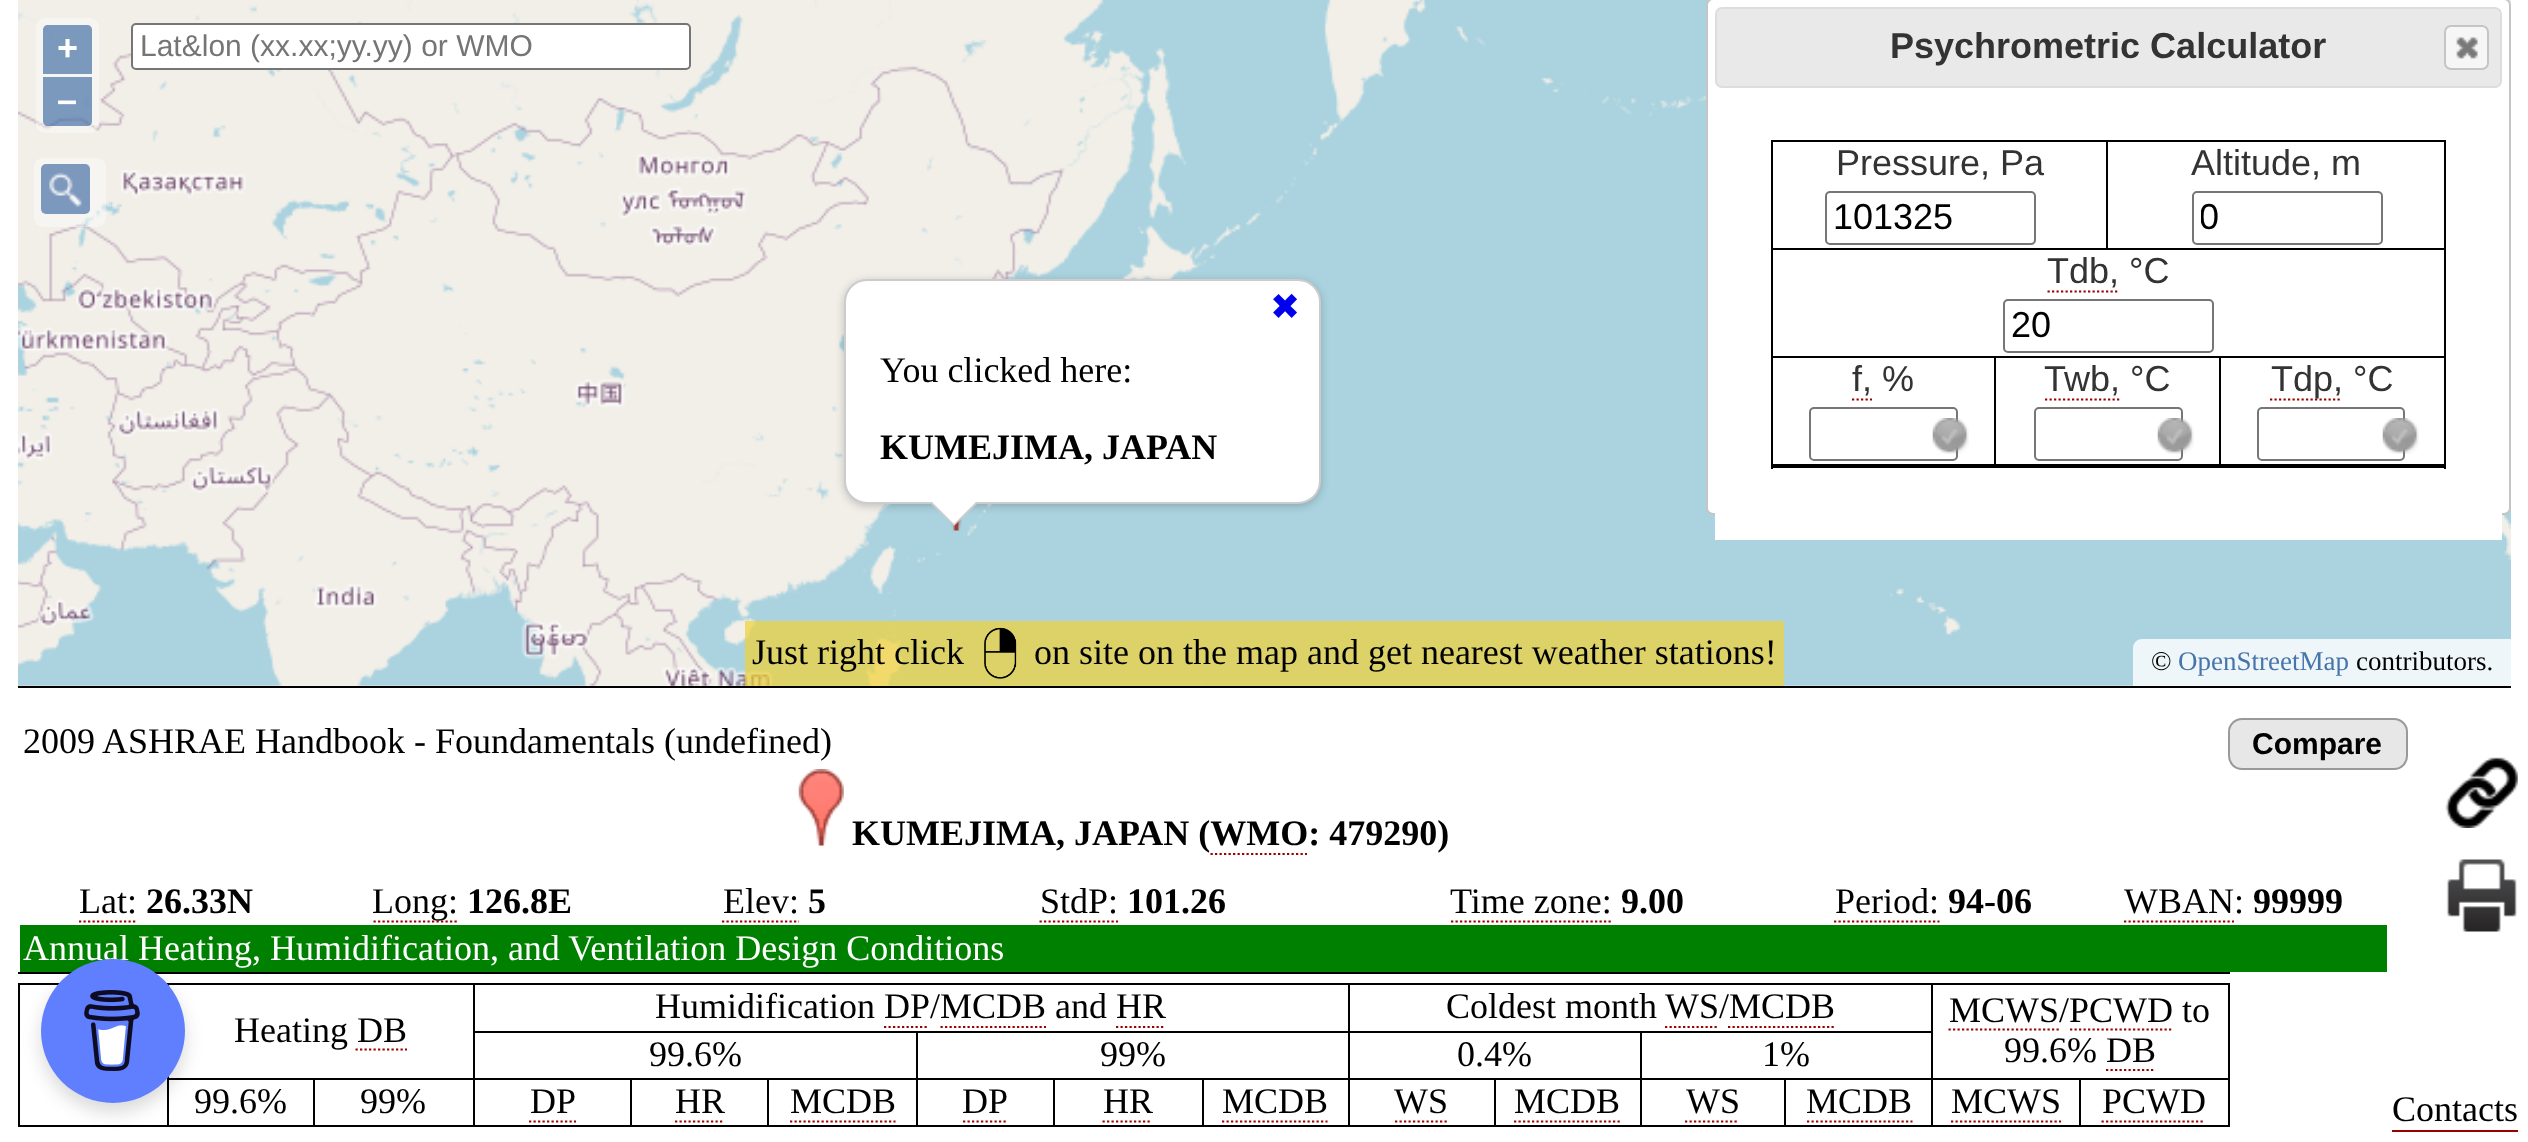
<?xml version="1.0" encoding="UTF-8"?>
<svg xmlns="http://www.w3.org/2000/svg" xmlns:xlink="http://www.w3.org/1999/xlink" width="2528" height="1142">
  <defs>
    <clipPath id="clip1"><rect x="2201" y="198" width="173" height="41" /></clipPath>
  </defs>
  <rect width="100%" height="100%" fill="#ffffff" />
  <image x="18" y="0" width="2493" height="686" xlink:href="image5.png" />
  <rect x="1707" y="-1" width="803" height="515" rx="6" fill="#ffffff" stroke="#c5c5c5" stroke-width="2" />
  <rect x="1716" y="8" width="785" height="79" rx="6" fill="#e9e9e9" stroke="#dddddd" stroke-width="2" />
  <rect x="2445" y="26" width="43" height="43" rx="6" fill="#f6f6f6" stroke="#c5c5c5" stroke-width="2" />
  <image x="2456" y="37" width="22" height="22" xlink:href="image1.png" />
  <rect x="1715" y="513" width="787" height="27" fill="#ffffff" />
  <rect x="1771" y="140" width="675" height="2" fill="#000000" />
  <rect x="2444" y="140" width="2" height="328" fill="#000000" />
  <rect x="1771" y="466" width="675" height="2" fill="#000000" />
  <rect x="1771" y="140" width="2" height="328" fill="#000000" />
  <rect x="1826" y="192" width="209" height="52" rx="4" fill="none" stroke="#767676" stroke-width="2" />
  <rect x="1771" y="248" width="675" height="2" fill="#000000" />
  <rect x="2106" y="140" width="2" height="110" fill="#000000" />
  <rect x="2193" y="192" width="189" height="52" rx="4" fill="none" stroke="#767676" stroke-width="2" />
  <path d="M 2047.5 291.5 h 72" fill="none" stroke="#990000" stroke-width="2.2" stroke-dasharray="2.25 2.25" />
  <rect x="2004" y="300" width="209" height="52" rx="4" fill="none" stroke="#767676" stroke-width="2" />
  <rect x="2219" y="356" width="227" height="2" fill="#000000" />
  <rect x="1771" y="464" width="675" height="2" fill="#000000" />
  <rect x="2219" y="403" width="2" height="63" fill="#000000" />
  <rect x="2219" y="356" width="2" height="49" fill="#000000" />
  <rect x="1994" y="356" width="227" height="2" fill="#000000" />
  <rect x="1994" y="403" width="2" height="63" fill="#000000" />
  <rect x="1994" y="356" width="2" height="49" fill="#000000" />
  <rect x="1771" y="356" width="225" height="2" fill="#000000" />
  <path d="M 1852 399.5 h 20" fill="none" stroke="#990000" stroke-width="2.2" stroke-dasharray="2.25 2.25" />
  <path d="M 2045 399.5 h 74.5" fill="none" stroke="#990000" stroke-width="2.2" stroke-dasharray="2.25 2.25" />
  <path d="M 2270 399.5 h 72" fill="none" stroke="#990000" stroke-width="2.2" stroke-dasharray="2.25 2.25" />
  <rect x="1810" y="408" width="147" height="52" rx="4" fill="none" stroke="#767676" stroke-width="2" />
  <image x="1932" y="418" width="37" height="36" xlink:href="image2.png" />
  <rect x="2035" y="408" width="147" height="52" rx="4" fill="none" stroke="#767676" stroke-width="2" />
  <image x="2157" y="418" width="37" height="36" xlink:href="image3.png" />
  <rect x="2258" y="408" width="146" height="52" rx="4" fill="none" stroke="#767676" stroke-width="2" />
  <image x="2382" y="418" width="37" height="36" xlink:href="image4.png" />
  <rect x="2444" y="464" width="2" height="5" fill="#000000" />
  <rect x="1771" y="464" width="2" height="5" fill="#000000" />
  <rect x="18" y="686" width="2493" height="2" fill="#000000" />
  <rect x="132" y="24" width="558" height="45" rx="4" fill="#ffffff" stroke="#767676" stroke-width="2" />
  <rect x="36" y="18" width="63" height="115" rx="9" fill="#ffffff" fill-opacity="0.4" />
  <path d="M 48 25 h 39 c 3 0 5 2 5 5 v 44 h -49 v -44 c 0 -3 2 -5 5 -5 z" fill="#003c88" fill-opacity="0.5" />
  <path d="M 43 77 h 49 v 44 c 0 3 -2 5 -5 5 h -39 c -3 0 -5 -2 -5 -5 z" fill="#003c88" fill-opacity="0.5" />
  <rect x="34" y="158" width="72" height="69" rx="9" fill="#ffffff" fill-opacity="0.4" />
  <rect x="41" y="164" width="49" height="50" rx="5" fill="#7c99bd" />
  <image x="49" y="172" width="33" height="35" xlink:href="image6.png" />
  <rect x="844" y="281" width="477" height="225" rx="23" fill="#000000" fill-opacity="0.2" filter="blur(4.5px)" />
  <rect x="845" y="280" width="475" height="223" rx="22" fill="#ffffff" stroke="#cccccc" stroke-width="2" />
  <path d="M 929 502 h 50 l -25 24 z" fill="#cccccc" />
  <path d="M 932 502 h 44 l -22 22 z" fill="#ffffff" />
  <path d="M 2142 639 h 369 v 47 h -378 v -38 c 0 -5 4 -9 9 -9 z" fill="#ffffff" fill-opacity="0.8" />
  <rect x="745" y="621" width="1039" height="65" fill="#f1d134" fill-opacity="0.7" />
  <image x="984" y="627" width="33" height="52" xlink:href="image7.png" />
  <image x="798" y="769" width="46" height="77" xlink:href="image8.png" />
  <path d="M 79 921.5 h 58" fill="none" stroke="#990000" stroke-width="2.2" stroke-dasharray="2.25 2.25" />
  <path d="M 373.5 921.5 h 85.5" fill="none" stroke="#990000" stroke-width="2.2" stroke-dasharray="2.25 2.25" />
  <path d="M 722 921.5 h 77" fill="none" stroke="#990000" stroke-width="2.2" stroke-dasharray="2.25 2.25" />
  <path d="M 1039.5 921.5 h 78.5" fill="none" stroke="#990000" stroke-width="2.2" stroke-dasharray="2.25 2.25" />
  <path d="M 1451 921.5 h 160" fill="none" stroke="#990000" stroke-width="2.2" stroke-dasharray="2.25 2.25" />
  <path d="M 1834 921.5 h 105.5" fill="none" stroke="#990000" stroke-width="2.2" stroke-dasharray="2.25 2.25" />
  <path d="M 2124 921.5 h 110" fill="none" stroke="#990000" stroke-width="2.2" stroke-dasharray="2.25 2.25" />
  <rect x="20" y="925" width="2367" height="47" fill="#008000" />
  <rect x="18" y="972" width="2212" height="2" fill="#000000" />
  <rect x="1931" y="983" width="299" height="2" fill="#000000" />
  <rect x="1640" y="1031" width="293" height="2" fill="#000000" />
  <rect x="2079" y="1078" width="151" height="2" fill="#000000" />
  <rect x="2228" y="1078" width="2" height="49" fill="#000000" />
  <rect x="2079" y="1125" width="151" height="2" fill="#000000" />
  <rect x="2079" y="1078" width="2" height="49" fill="#000000" />
  <rect x="1931" y="1078" width="150" height="2" fill="#000000" />
  <rect x="1931" y="1125" width="150" height="2" fill="#000000" />
  <rect x="1931" y="1078" width="2" height="49" fill="#000000" />
  <rect x="1784" y="1078" width="149" height="2" fill="#000000" />
  <rect x="1931" y="983" width="2" height="97" fill="#000000" />
  <rect x="1348" y="983" width="585" height="2" fill="#000000" />
  <rect x="1784" y="1125" width="149" height="2" fill="#000000" />
  <rect x="1784" y="1078" width="2" height="49" fill="#000000" />
  <rect x="1640" y="1078" width="147" height="2" fill="#000000" />
  <rect x="1640" y="1125" width="147" height="2" fill="#000000" />
  <rect x="1640" y="1078" width="2" height="49" fill="#000000" />
  <rect x="1494" y="1078" width="149" height="2" fill="#000000" />
  <rect x="1640" y="1031" width="2" height="49" fill="#000000" />
  <rect x="1348" y="1031" width="295" height="2" fill="#000000" />
  <rect x="1494" y="1125" width="149" height="2" fill="#000000" />
  <rect x="1494" y="1078" width="2" height="49" fill="#000000" />
  <rect x="1348" y="1078" width="148" height="2" fill="#000000" />
  <rect x="1348" y="1125" width="148" height="2" fill="#000000" />
  <rect x="1348" y="1078" width="2" height="49" fill="#000000" />
  <rect x="1202" y="1078" width="148" height="2" fill="#000000" />
  <rect x="1348" y="1031" width="2" height="49" fill="#000000" />
  <rect x="916" y="1031" width="434" height="2" fill="#000000" />
  <rect x="1348" y="983" width="2" height="50" fill="#000000" />
  <rect x="473" y="983" width="877" height="2" fill="#000000" />
  <rect x="1202" y="1125" width="148" height="2" fill="#000000" />
  <rect x="1202" y="1078" width="2" height="49" fill="#000000" />
  <rect x="1053" y="1078" width="151" height="2" fill="#000000" />
  <rect x="1053" y="1125" width="151" height="2" fill="#000000" />
  <rect x="1053" y="1078" width="2" height="49" fill="#000000" />
  <rect x="916" y="1078" width="139" height="2" fill="#000000" />
  <rect x="916" y="1125" width="139" height="2" fill="#000000" />
  <rect x="916" y="1078" width="2" height="49" fill="#000000" />
  <rect x="767" y="1078" width="151" height="2" fill="#000000" />
  <rect x="916" y="1031" width="2" height="49" fill="#000000" />
  <rect x="473" y="1031" width="445" height="2" fill="#000000" />
  <rect x="767" y="1125" width="151" height="2" fill="#000000" />
  <rect x="767" y="1078" width="2" height="49" fill="#000000" />
  <rect x="630" y="1078" width="140" height="2" fill="#000000" />
  <rect x="630" y="1125" width="140" height="2" fill="#000000" />
  <rect x="630" y="1078" width="2" height="49" fill="#000000" />
  <rect x="473" y="1078" width="159" height="2" fill="#000000" />
  <rect x="473" y="1125" width="159" height="2" fill="#000000" />
  <rect x="473" y="1078" width="2" height="49" fill="#000000" />
  <rect x="313" y="1078" width="162" height="2" fill="#000000" />
  <rect x="473" y="1031" width="2" height="49" fill="#000000" />
  <rect x="473" y="983" width="2" height="50" fill="#000000" />
  <rect x="167" y="983" width="308" height="2" fill="#000000" />
  <rect x="313" y="1125" width="162" height="2" fill="#000000" />
  <rect x="313" y="1078" width="2" height="49" fill="#000000" />
  <rect x="167" y="1078" width="148" height="2" fill="#000000" />
  <rect x="18" y="1125" width="151" height="2" fill="#000000" />
  <rect x="167" y="1125" width="148" height="2" fill="#000000" />
  <rect x="167" y="1078" width="2" height="49" fill="#000000" />
  <rect x="167" y="983" width="2" height="97" fill="#000000" />
  <rect x="18" y="983" width="151" height="2" fill="#000000" />
  <rect x="18" y="983" width="2" height="144" fill="#000000" />
  <path d="M 884 1027 h 45" fill="none" stroke="#990000" stroke-width="2.2" stroke-dasharray="2.25 2.25" />
  <path d="M 940.5 1027 h 105.5" fill="none" stroke="#990000" stroke-width="2.2" stroke-dasharray="2.25 2.25" />
  <path d="M 1116 1027 h 49.5" fill="none" stroke="#990000" stroke-width="2.2" stroke-dasharray="2.25 2.25" />
  <path d="M 1665 1027 h 54" fill="none" stroke="#990000" stroke-width="2.2" stroke-dasharray="2.25 2.25" />
  <path d="M 1728 1027 h 108" fill="none" stroke="#990000" stroke-width="2.2" stroke-dasharray="2.25 2.25" />
  <rect x="2228" y="983" width="2" height="97" fill="#000000" />
  <path d="M 1948.5 1029.5 h 110.5" fill="none" stroke="#990000" stroke-width="2.2" stroke-dasharray="2.25 2.25" />
  <path d="M 2070 1029.5 h 103.5" fill="none" stroke="#990000" stroke-width="2.2" stroke-dasharray="2.25 2.25" />
  <path d="M 2106 1070 h 49.5" fill="none" stroke="#990000" stroke-width="2.2" stroke-dasharray="2.25 2.25" />
  <path d="M 529 1121.5 h 47" fill="none" stroke="#990000" stroke-width="2.2" stroke-dasharray="2.25 2.25" />
  <path d="M 675 1121.5 h 49.5" fill="none" stroke="#990000" stroke-width="2.2" stroke-dasharray="2.25 2.25" />
  <path d="M 790 1121.5 h 105.5" fill="none" stroke="#990000" stroke-width="2.2" stroke-dasharray="2.25 2.25" />
  <path d="M 963 1121.5 h 45" fill="none" stroke="#990000" stroke-width="2.2" stroke-dasharray="2.25 2.25" />
  <path d="M 1102.5 1121.5 h 49.5" fill="none" stroke="#990000" stroke-width="2.2" stroke-dasharray="2.25 2.25" />
  <path d="M 1222 1121.5 h 105.5" fill="none" stroke="#990000" stroke-width="2.2" stroke-dasharray="2.25 2.25" />
  <path d="M 1395 1121.5 h 54" fill="none" stroke="#990000" stroke-width="2.2" stroke-dasharray="2.25 2.25" />
  <path d="M 1514 1121.5 h 106" fill="none" stroke="#990000" stroke-width="2.2" stroke-dasharray="2.25 2.25" />
  <path d="M 1685 1121.5 h 54" fill="none" stroke="#990000" stroke-width="2.2" stroke-dasharray="2.25 2.25" />
  <path d="M 1807 1121.5 h 105.5" fill="none" stroke="#990000" stroke-width="2.2" stroke-dasharray="2.25 2.25" />
  <path d="M 1951 1121.5 h 110" fill="none" stroke="#990000" stroke-width="2.2" stroke-dasharray="2.25 2.25" />
  <path d="M 2101.5 1121.5 h 103.5" fill="none" stroke="#990000" stroke-width="2.2" stroke-dasharray="2.25 2.25" />
  <rect x="2229" y="719" width="178" height="50" rx="13" fill="#e7e7e7" stroke="#999999" stroke-width="2" />
  <image x="2445" y="757" width="73" height="71" xlink:href="image9.png" />
  <image x="2446" y="859" width="71" height="73" xlink:href="image10.png" />
  <rect x="41" y="968" width="144" height="144" rx="72" fill="#000000" fill-opacity="0.15" filter="blur(9px)" />
  <rect x="2392" y="1130" width="126" height="2" fill="#990000" />
  <text x="1890" y="58" style="font-family: Liberation Sans; font-size: 36px; font-weight: bold; fill: #333333">Psychrometric Calculator</text>
  <text x="1836" y="175" style="font-family: Liberation Sans; font-size: 36px; fill: #333333">Pressure, Pa</text>
  <text x="2191" y="175" style="font-family: Liberation Sans; font-size: 36px; fill: #333333">Altitude, m</text>
  <text x="1833" y="229" style="font-family: Liberation Sans; font-size: 36px; fill: #000000">101325</text>
  <g clip-path="url(#clip1)">
    <text x="2199" y="229" style="font-family: Liberation Sans; font-size: 36px; fill: #000000">0</text>
  </g>
  <text x="2047" y="283" style="font-family: Liberation Sans; font-size: 36px; fill: #333333">Tdb, °C</text>
  <text x="2011" y="337" style="font-family: Liberation Sans; font-size: 36px; fill: #000000">20</text>
  <text x="1852" y="391" style="font-family: Liberation Sans; font-size: 36px; fill: #333333">f, %</text>
  <text x="2044" y="391" style="font-family: Liberation Sans; font-size: 36px; fill: #333333">Twb, °C</text>
  <text x="2271" y="391" style="font-family: Liberation Sans; font-size: 36px; fill: #333333">Tdp, °C</text>
  <text x="140" y="56" style="font-family: Liberation Sans; font-size: 30px; fill: #757575">Lat&amp;lon (xx.xx;yy.yy) or WMO</text>
  <text x="57" y="60" style="font-family: Liberation Sans; font-size: 36px; font-weight: bold; fill: #ffffff">+</text>
  <text x="57" y="112" style="font-family: Liberation Sans; font-size: 36px; font-weight: bold; fill: #ffffff">–</text>
  <text x="1270" y="319" style="font-family: DejaVu Sans; font-size: 36px; fill: #0000ee">✖</text>
  <text x="880" y="382" style="font-family: Liberation Serif; font-size: 36px; fill: #000000">You clicked here:</text>
  <text x="880" y="459" style="font-family: Liberation Serif; font-size: 36px; font-weight: bold; fill: #000000">KUMEJIMA, JAPAN</text>
  <text x="2151" y="670" style="font-family: Liberation Serif; font-size: 27px; fill: #000000">©</text>
  <text x="2178" y="670" style="font-family: Liberation Serif; font-size: 27px; fill: #4774aa">OpenStreetMap</text>
  <text x="2356" y="670" style="font-family: Liberation Serif; font-size: 27px; fill: #000000">contributors.</text>
  <text x="752" y="664" style="font-family: Liberation Serif; font-size: 36px; fill: #000000">Just right click</text>
  <text x="1034" y="664" style="font-family: Liberation Serif; font-size: 36px; fill: #000000">on site on the map and get nearest weather stations!</text>
  <text x="23" y="753" style="font-family: Liberation Serif; font-size: 36px; fill: #000000">2009 ASHRAE Handbook - Foundamentals (undefined)</text>
  <text x="852" y="845" style="font-family: Liberation Serif; font-size: 36px; font-weight: bold; fill: #000000">KUMEJIMA, JAPAN (WMO: 479290)</text>
  <path d="M 1210.5 854 h 96.5" fill="none" stroke="#990000" stroke-width="2.2" stroke-dasharray="2.25 2.25" />
  <text x="79" y="913" style="font-family: Liberation Serif; font-size: 36px; fill: #000000">Lat:</text>
  <text x="146" y="913" style="font-family: Liberation Serif; font-size: 36px; font-weight: bold; fill: #000000">26.33N</text>
  <text x="372" y="913" style="font-family: Liberation Serif; font-size: 36px; fill: #000000">Long:</text>
  <text x="467" y="913" style="font-family: Liberation Serif; font-size: 36px; font-weight: bold; fill: #000000">126.8E</text>
  <text x="723" y="913" style="font-family: Liberation Serif; font-size: 36px; fill: #000000">Elev:</text>
  <text x="808" y="913" style="font-family: Liberation Serif; font-size: 36px; font-weight: bold; fill: #000000">5</text>
  <text x="1040" y="913" style="font-family: Liberation Serif; font-size: 36px; fill: #000000">StdP:</text>
  <text x="1127" y="913" style="font-family: Liberation Serif; font-size: 36px; font-weight: bold; fill: #000000">101.26</text>
  <text x="1450" y="913" style="font-family: Liberation Serif; font-size: 36px; fill: #000000">Time zone:</text>
  <text x="1621" y="913" style="font-family: Liberation Serif; font-size: 36px; font-weight: bold; fill: #000000">9.00</text>
  <text x="1835" y="913" style="font-family: Liberation Serif; font-size: 36px; fill: #000000">Period:</text>
  <text x="1948" y="913" style="font-family: Liberation Serif; font-size: 36px; font-weight: bold; fill: #000000">94-06</text>
  <text x="2124" y="913" style="font-family: Liberation Serif; font-size: 36px; fill: #000000">WBAN:</text>
  <text x="2253" y="913" style="font-family: Liberation Serif; font-size: 36px; font-weight: bold; fill: #000000">99999</text>
  <text x="23" y="960" style="font-family: Liberation Serif; font-size: 36px; fill: #ffffff">Annual Heating, Humidification, and Ventilation Design Conditions</text>
  <text x="234" y="1042" style="font-family: Liberation Serif; font-size: 36px; fill: #000000">Heating DB</text>
  <path d="M 355.5 1049.5 h 51.5" fill="none" stroke="#990000" stroke-width="2.2" stroke-dasharray="2.25 2.25" />
  <text x="655" y="1018" style="font-family: Liberation Serif; font-size: 36px; fill: #000000">Humidification DP/MCDB and HR</text>
  <text x="1446" y="1018" style="font-family: Liberation Serif; font-size: 36px; fill: #000000">Coldest month</text>
  <text x="1665" y="1018" style="font-family: Liberation Serif; font-size: 36px; fill: #000000">WS/MCDB</text>
  <text x="1949" y="1022" style="font-family: Liberation Serif; font-size: 36px; fill: #000000">MCWS/PCWD to</text>
  <text x="2004" y="1062" style="font-family: Liberation Serif; font-size: 36px; fill: #000000">99.6% DB</text>
  <text x="649" y="1066" style="font-family: Liberation Serif; font-size: 36px; fill: #000000">99.6%</text>
  <text x="1100" y="1066" style="font-family: Liberation Serif; font-size: 36px; fill: #000000">99%</text>
  <text x="1457" y="1066" style="font-family: Liberation Serif; font-size: 36px; fill: #000000">0.4%</text>
  <text x="1762" y="1066" style="font-family: Liberation Serif; font-size: 36px; fill: #000000">1%</text>
  <text x="194" y="1113" style="font-family: Liberation Serif; font-size: 36px; fill: #000000">99.6%</text>
  <text x="360" y="1113" style="font-family: Liberation Serif; font-size: 36px; fill: #000000">99%</text>
  <text x="530" y="1113" style="font-family: Liberation Serif; font-size: 36px; fill: #000000">DP</text>
  <text x="675" y="1113" style="font-family: Liberation Serif; font-size: 36px; fill: #000000">HR</text>
  <text x="790" y="1113" style="font-family: Liberation Serif; font-size: 36px; fill: #000000">MCDB</text>
  <text x="962" y="1113" style="font-family: Liberation Serif; font-size: 36px; fill: #000000">DP</text>
  <text x="1103" y="1113" style="font-family: Liberation Serif; font-size: 36px; fill: #000000">HR</text>
  <text x="1222" y="1113" style="font-family: Liberation Serif; font-size: 36px; fill: #000000">MCDB</text>
  <text x="1394" y="1113" style="font-family: Liberation Serif; font-size: 36px; fill: #000000">WS</text>
  <text x="1514" y="1113" style="font-family: Liberation Serif; font-size: 36px; fill: #000000">MCDB</text>
  <text x="1686" y="1113" style="font-family: Liberation Serif; font-size: 36px; fill: #000000">WS</text>
  <text x="1806" y="1113" style="font-family: Liberation Serif; font-size: 36px; fill: #000000">MCDB</text>
  <text x="1951" y="1113" style="font-family: Liberation Serif; font-size: 36px; fill: #000000">MCWS</text>
  <text x="2102" y="1113" style="font-family: Liberation Serif; font-size: 36px; fill: #000000">PCWD</text>
  <text x="2252" y="754" style="font-family: Liberation Sans; font-size: 30px; font-weight: bold; fill: #000000">Compare</text>
  <circle cx="113" cy="1031" r="72" fill="#5f7fff" />
  <image x="84" y="990" width="56" height="81" xlink:href="image11.png" />
  <text x="2392" y="1121" style="font-family: Liberation Serif; font-size: 36px; fill: #000000">Contacts</text>
</svg>
